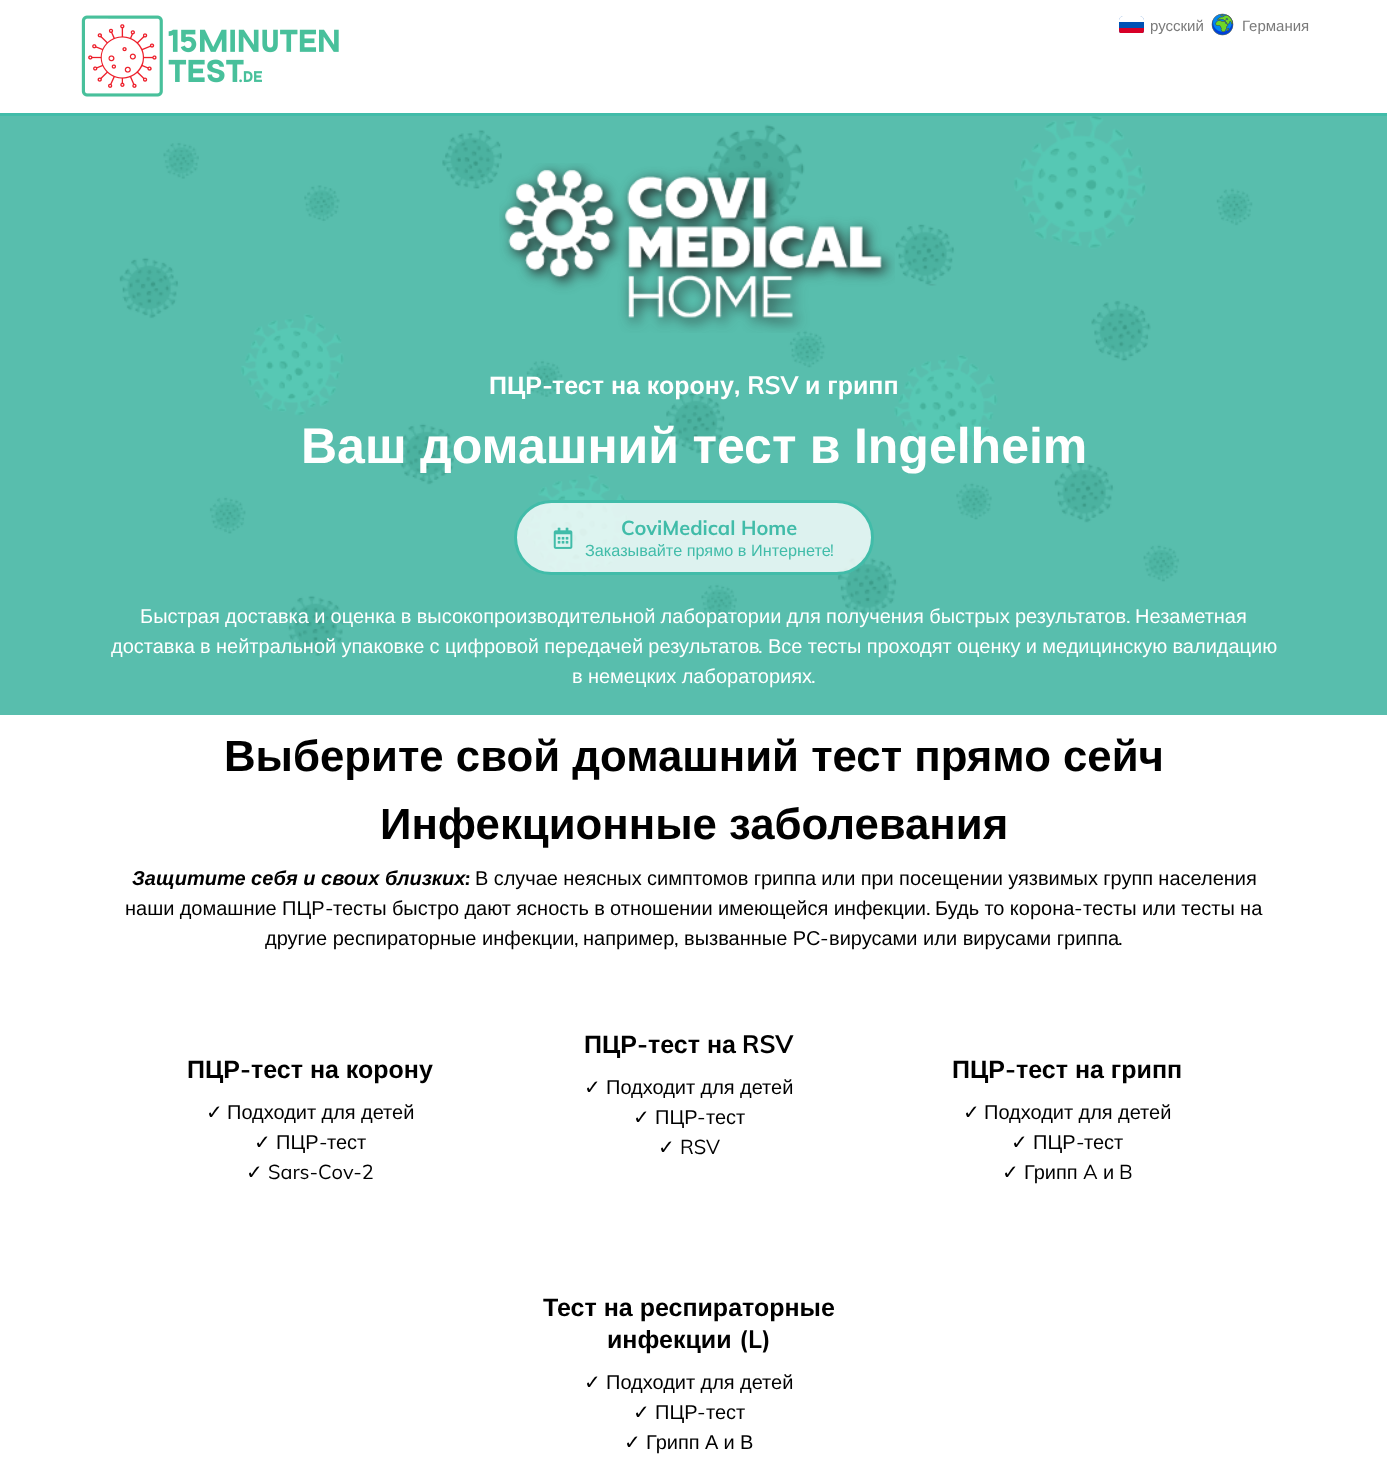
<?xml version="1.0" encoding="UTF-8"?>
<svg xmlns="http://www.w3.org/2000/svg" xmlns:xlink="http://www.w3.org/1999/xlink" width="1387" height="1470">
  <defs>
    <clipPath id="clip1"><rect x="1119" y="16" width="25" height="18" rx="4" /></clipPath>
  </defs>
  <rect width="100%" height="100%" fill="#ffffff" />
  <rect y="113" width="1387" height="3" fill="#41bca9" />
  <image x="81" y="15" width="258" height="82" xlink:href="image1.png" />
  <g clip-path="url(#clip1)">
    <path d="M 1123 16 h 17 c 2 0 4 2 4 4 v 13 h -25 v -13 c 0 -2 2 -4 4 -4 z" fill="#0052b4" />
  </g>
  <path d="M 1123 16 h 17 c 2 0 4 2 4 4 v 2 h -25 v -2 c 0 -2 2 -4 4 -4 z" fill="#ffffff" />
  <g clip-path="url(#clip1)">
    <rect x="1119" y="28" width="25" height="5" fill="#d80027" />
  </g>
  <image x="1211" y="13" width="23" height="23" xlink:href="image2.png" />
  <rect y="116" width="1387" height="599" fill="#58bead" />
  <image x="119" y="116" width="1134" height="540" xlink:href="image3.png" />
  <image x="499" y="163" width="396" height="170" xlink:href="image4.png" />
  <rect x="515.5" y="501.5" width="357" height="72" rx="36" fill="#ffffff" fill-opacity="0.8" stroke="#41bca9" stroke-width="3" />
  <image x="553" y="527" width="20" height="22" xlink:href="image5.png" />
  <text x="1150" y="31" style="font-family: Liberation Sans; font-size: 15px; fill: #7a7a7a">русский</text>
  <text x="1242" y="31" style="font-family: Liberation Sans; font-size: 15px; fill: #7a7a7a">Германия</text>
  <text x="489" y="394" style="font-family: Liberation Sans; font-size: 25px; font-weight: bold; fill: #ffffff">ПЦР</text>
  <text x="542" y="394" style="font-family: Muli; font-size: 25px; font-weight: bold; fill: #ffffff">-</text>
  <text x="552" y="394" style="font-family: Liberation Sans; font-size: 25px; font-weight: bold; fill: #ffffff">тест на корону</text>
  <text x="734" y="394" style="font-family: Muli; font-size: 25px; font-weight: bold; fill: #ffffff">, RSV</text>
  <text x="805" y="394" style="font-family: Liberation Sans; font-size: 25px; font-weight: bold; fill: #ffffff">и грипп</text>
  <text x="301" y="463" word-spacing="-0.5" style="font-family: Liberation Sans; font-size: 50px; font-weight: bold; fill: #ffffff">Ваш домашний тест в Ingelheim</text>
  <text x="621" y="535" style="font-family: Muli; font-size: 20px; font-weight: bold; fill: #41bca9">CoviMedical Home</text>
  <text x="585" y="556" style="font-family: Liberation Sans; font-size: 16.25px; fill: #41bca9">Заказывайте прямо в Интернете</text>
  <text x="830" y="556" style="font-family: Muli; font-size: 16.25px; fill: #41bca9">!</text>
  <text x="140" y="623" word-spacing="-0.25" style="font-family: Liberation Sans; font-size: 20px; fill: #ffffff">Быстрая доставка и оценка в высокопроизводительной лаборатории для получения быстрых результатов</text>
  <text x="1126" y="623" style="font-family: Muli; font-size: 20px; fill: #ffffff">.</text>
  <text x="1135" y="623" style="font-family: Liberation Sans; font-size: 20px; fill: #ffffff">Незаметная</text>
  <text x="111" y="653" word-spacing="-0.25" style="font-family: Liberation Sans; font-size: 20px; fill: #ffffff">доставка в нейтральной упаковке с цифровой передачей результатов</text>
  <text x="758" y="653" style="font-family: Muli; font-size: 20px; fill: #ffffff">.</text>
  <text x="768" y="653" word-spacing="-0.25" style="font-family: Liberation Sans; font-size: 20px; fill: #ffffff">Все тесты проходят оценку и медицинскую валидацию</text>
  <text x="572" y="683" word-spacing="-0.25" style="font-family: Liberation Sans; font-size: 20px; fill: #ffffff">в немецких лабораториях</text>
  <text x="811" y="683" style="font-family: Muli; font-size: 20px; fill: #ffffff">.</text>
  <text x="224" y="771" style="font-family: Liberation Sans; font-size: 43.75px; font-weight: bold; fill: #000000">Выберите свой домашний тест прямо сейч</text>
  <text x="380" y="839" style="font-family: Liberation Sans; font-size: 43.75px; font-weight: bold; fill: #000000">Инфекционные заболевания</text>
  <text x="132" y="885" style="font-family: Liberation Sans; font-size: 20px; font-weight: bold; font-style: italic; fill: #000000">Защитите себя и своих близких</text>
  <text x="465" y="885" style="font-family: Muli; font-size: 20px; font-weight: bold; font-style: italic; fill: #000000">:</text>
  <text x="475" y="885" word-spacing="-0.25" style="font-family: Liberation Sans; font-size: 20px; fill: #000000">В случае неясных симптомов гриппа или при посещении уязвимых групп населения</text>
  <text x="125" y="915" word-spacing="-0.25" style="font-family: Liberation Sans; font-size: 20px; fill: #000000">наши домашние ПЦР</text>
  <text x="325" y="915" style="font-family: Muli; font-size: 20px; fill: #000000">-</text>
  <text x="333" y="915" word-spacing="-0.25" style="font-family: Liberation Sans; font-size: 20px; fill: #000000">тесты быстро дают ясность в отношении имеющейся инфекции</text>
  <text x="935" y="915" word-spacing="-0.25" style="font-family: Liberation Sans; font-size: 20px; fill: #000000">Будь то корона</text>
  <text x="1074" y="915" style="font-family: Muli; font-size: 20px; fill: #000000">-</text>
  <text x="1083" y="915" word-spacing="-0.25" style="font-family: Liberation Sans; font-size: 20px; fill: #000000">тесты или тесты на</text>
  <text x="926" y="915" style="font-family: Muli; font-size: 20px; fill: #000000">.</text>
  <text x="265" y="945" style="font-family: Liberation Sans; font-size: 20px; fill: #000000">другие респираторные инфекции</text>
  <text x="583" y="945" style="font-family: Liberation Sans; font-size: 20px; fill: #000000">например</text>
  <text x="684" y="945" style="font-family: Liberation Sans; font-size: 20px; fill: #000000">вызванные РС</text>
  <text x="820" y="945" style="font-family: Muli; font-size: 20px; fill: #000000">-</text>
  <text x="829" y="945" style="font-family: Liberation Sans; font-size: 20px; fill: #000000">вирусами или вирусами гриппа</text>
  <text x="574" y="945" style="font-family: Muli; font-size: 20px; fill: #000000">,</text>
  <text x="674" y="945" style="font-family: Muli; font-size: 20px; fill: #000000">,</text>
  <text x="1118" y="945" style="font-family: Muli; font-size: 20px; fill: #000000">.</text>
  <text x="187" y="1078" style="font-family: Liberation Sans; font-size: 25px; font-weight: bold; fill: #000000">ПЦР</text>
  <text x="240" y="1078" style="font-family: Muli; font-size: 25px; font-weight: bold; fill: #000000">-</text>
  <text x="251" y="1078" style="font-family: Liberation Sans; font-size: 25px; font-weight: bold; fill: #000000">тест на корону</text>
  <text x="206" y="1119" style="font-family: DejaVu Sans; font-size: 20px; fill: #000000">✓</text>
  <text x="227" y="1119" word-spacing="-0.25" style="font-family: Liberation Sans; font-size: 20px; fill: #000000">Подходит для детей</text>
  <text x="254" y="1149" style="font-family: DejaVu Sans; font-size: 20px; fill: #000000">✓</text>
  <text x="276" y="1149" style="font-family: Liberation Sans; font-size: 20px; fill: #000000">ПЦР</text>
  <text x="319" y="1149" style="font-family: Muli; font-size: 20px; fill: #000000">-</text>
  <text x="327" y="1149" style="font-family: Liberation Sans; font-size: 20px; fill: #000000">тест</text>
  <text x="246" y="1179" style="font-family: DejaVu Sans; font-size: 20px; fill: #000000">✓</text>
  <text x="268" y="1179" style="font-family: Muli; font-size: 20px; fill: #000000">Sars-Cov-2</text>
  <text x="584" y="1053" style="font-family: Liberation Sans; font-size: 25px; font-weight: bold; fill: #000000">ПЦР</text>
  <text x="637" y="1053" style="font-family: Muli; font-size: 25px; font-weight: bold; fill: #000000">-</text>
  <text x="648" y="1053" style="font-family: Liberation Sans; font-size: 25px; font-weight: bold; fill: #000000">тест на</text>
  <text x="742" y="1053" style="font-family: Muli; font-size: 25px; font-weight: bold; fill: #000000">RSV</text>
  <text x="584" y="1094" style="font-family: DejaVu Sans; font-size: 20px; fill: #000000">✓</text>
  <text x="606" y="1094" word-spacing="-0.25" style="font-family: Liberation Sans; font-size: 20px; fill: #000000">Подходит для детей</text>
  <text x="633" y="1124" style="font-family: DejaVu Sans; font-size: 20px; fill: #000000">✓</text>
  <text x="655" y="1124" style="font-family: Liberation Sans; font-size: 20px; fill: #000000">ПЦР</text>
  <text x="697" y="1124" style="font-family: Muli; font-size: 20px; fill: #000000">-</text>
  <text x="706" y="1124" style="font-family: Liberation Sans; font-size: 20px; fill: #000000">тест</text>
  <text x="658" y="1154" style="font-family: DejaVu Sans; font-size: 20px; fill: #000000">✓</text>
  <text x="680" y="1154" style="font-family: Muli; font-size: 20px; fill: #000000">RSV</text>
  <text x="952" y="1078" style="font-family: Liberation Sans; font-size: 25px; font-weight: bold; fill: #000000">ПЦР</text>
  <text x="1005" y="1078" style="font-family: Muli; font-size: 25px; font-weight: bold; fill: #000000">-</text>
  <text x="1016" y="1078" style="font-family: Liberation Sans; font-size: 25px; font-weight: bold; fill: #000000">тест на грипп</text>
  <text x="963" y="1119" style="font-family: DejaVu Sans; font-size: 20px; fill: #000000">✓</text>
  <text x="984" y="1119" word-spacing="-0.25" style="font-family: Liberation Sans; font-size: 20px; fill: #000000">Подходит для детей</text>
  <text x="1011" y="1149" style="font-family: DejaVu Sans; font-size: 20px; fill: #000000">✓</text>
  <text x="1033" y="1149" style="font-family: Liberation Sans; font-size: 20px; fill: #000000">ПЦР</text>
  <text x="1076" y="1149" style="font-family: Muli; font-size: 20px; fill: #000000">-</text>
  <text x="1084" y="1149" style="font-family: Liberation Sans; font-size: 20px; fill: #000000">тест</text>
  <text x="1002" y="1179" style="font-family: DejaVu Sans; font-size: 20px; fill: #000000">✓</text>
  <text x="1024" y="1179" style="font-family: Liberation Sans; font-size: 20px; fill: #000000">Грипп</text>
  <text x="1083" y="1179" style="font-family: Muli; font-size: 20px; fill: #000000">A</text>
  <text x="1103" y="1179" style="font-family: Liberation Sans; font-size: 20px; fill: #000000">и</text>
  <text x="1119" y="1179" style="font-family: Muli; font-size: 20px; fill: #000000">B</text>
  <text x="543" y="1316" style="font-family: Liberation Sans; font-size: 25px; font-weight: bold; fill: #000000">Тест на респираторные</text>
  <text x="607" y="1348" style="font-family: Liberation Sans; font-size: 25px; font-weight: bold; fill: #000000">инфекции</text>
  <text x="739" y="1348" style="font-family: Muli; font-size: 25px; font-weight: bold; fill: #000000">(L)</text>
  <text x="584" y="1389" style="font-family: DejaVu Sans; font-size: 20px; fill: #000000">✓</text>
  <text x="606" y="1389" word-spacing="-0.25" style="font-family: Liberation Sans; font-size: 20px; fill: #000000">Подходит для детей</text>
  <text x="633" y="1419" style="font-family: DejaVu Sans; font-size: 20px; fill: #000000">✓</text>
  <text x="655" y="1419" style="font-family: Liberation Sans; font-size: 20px; fill: #000000">ПЦР</text>
  <text x="697" y="1419" style="font-family: Muli; font-size: 20px; fill: #000000">-</text>
  <text x="706" y="1419" style="font-family: Liberation Sans; font-size: 20px; fill: #000000">тест</text>
  <text x="624" y="1449" style="font-family: DejaVu Sans; font-size: 20px; fill: #000000">✓</text>
  <text x="646" y="1449" word-spacing="-0.25" style="font-family: Liberation Sans; font-size: 20px; fill: #000000">Грипп А и В</text>
</svg>
